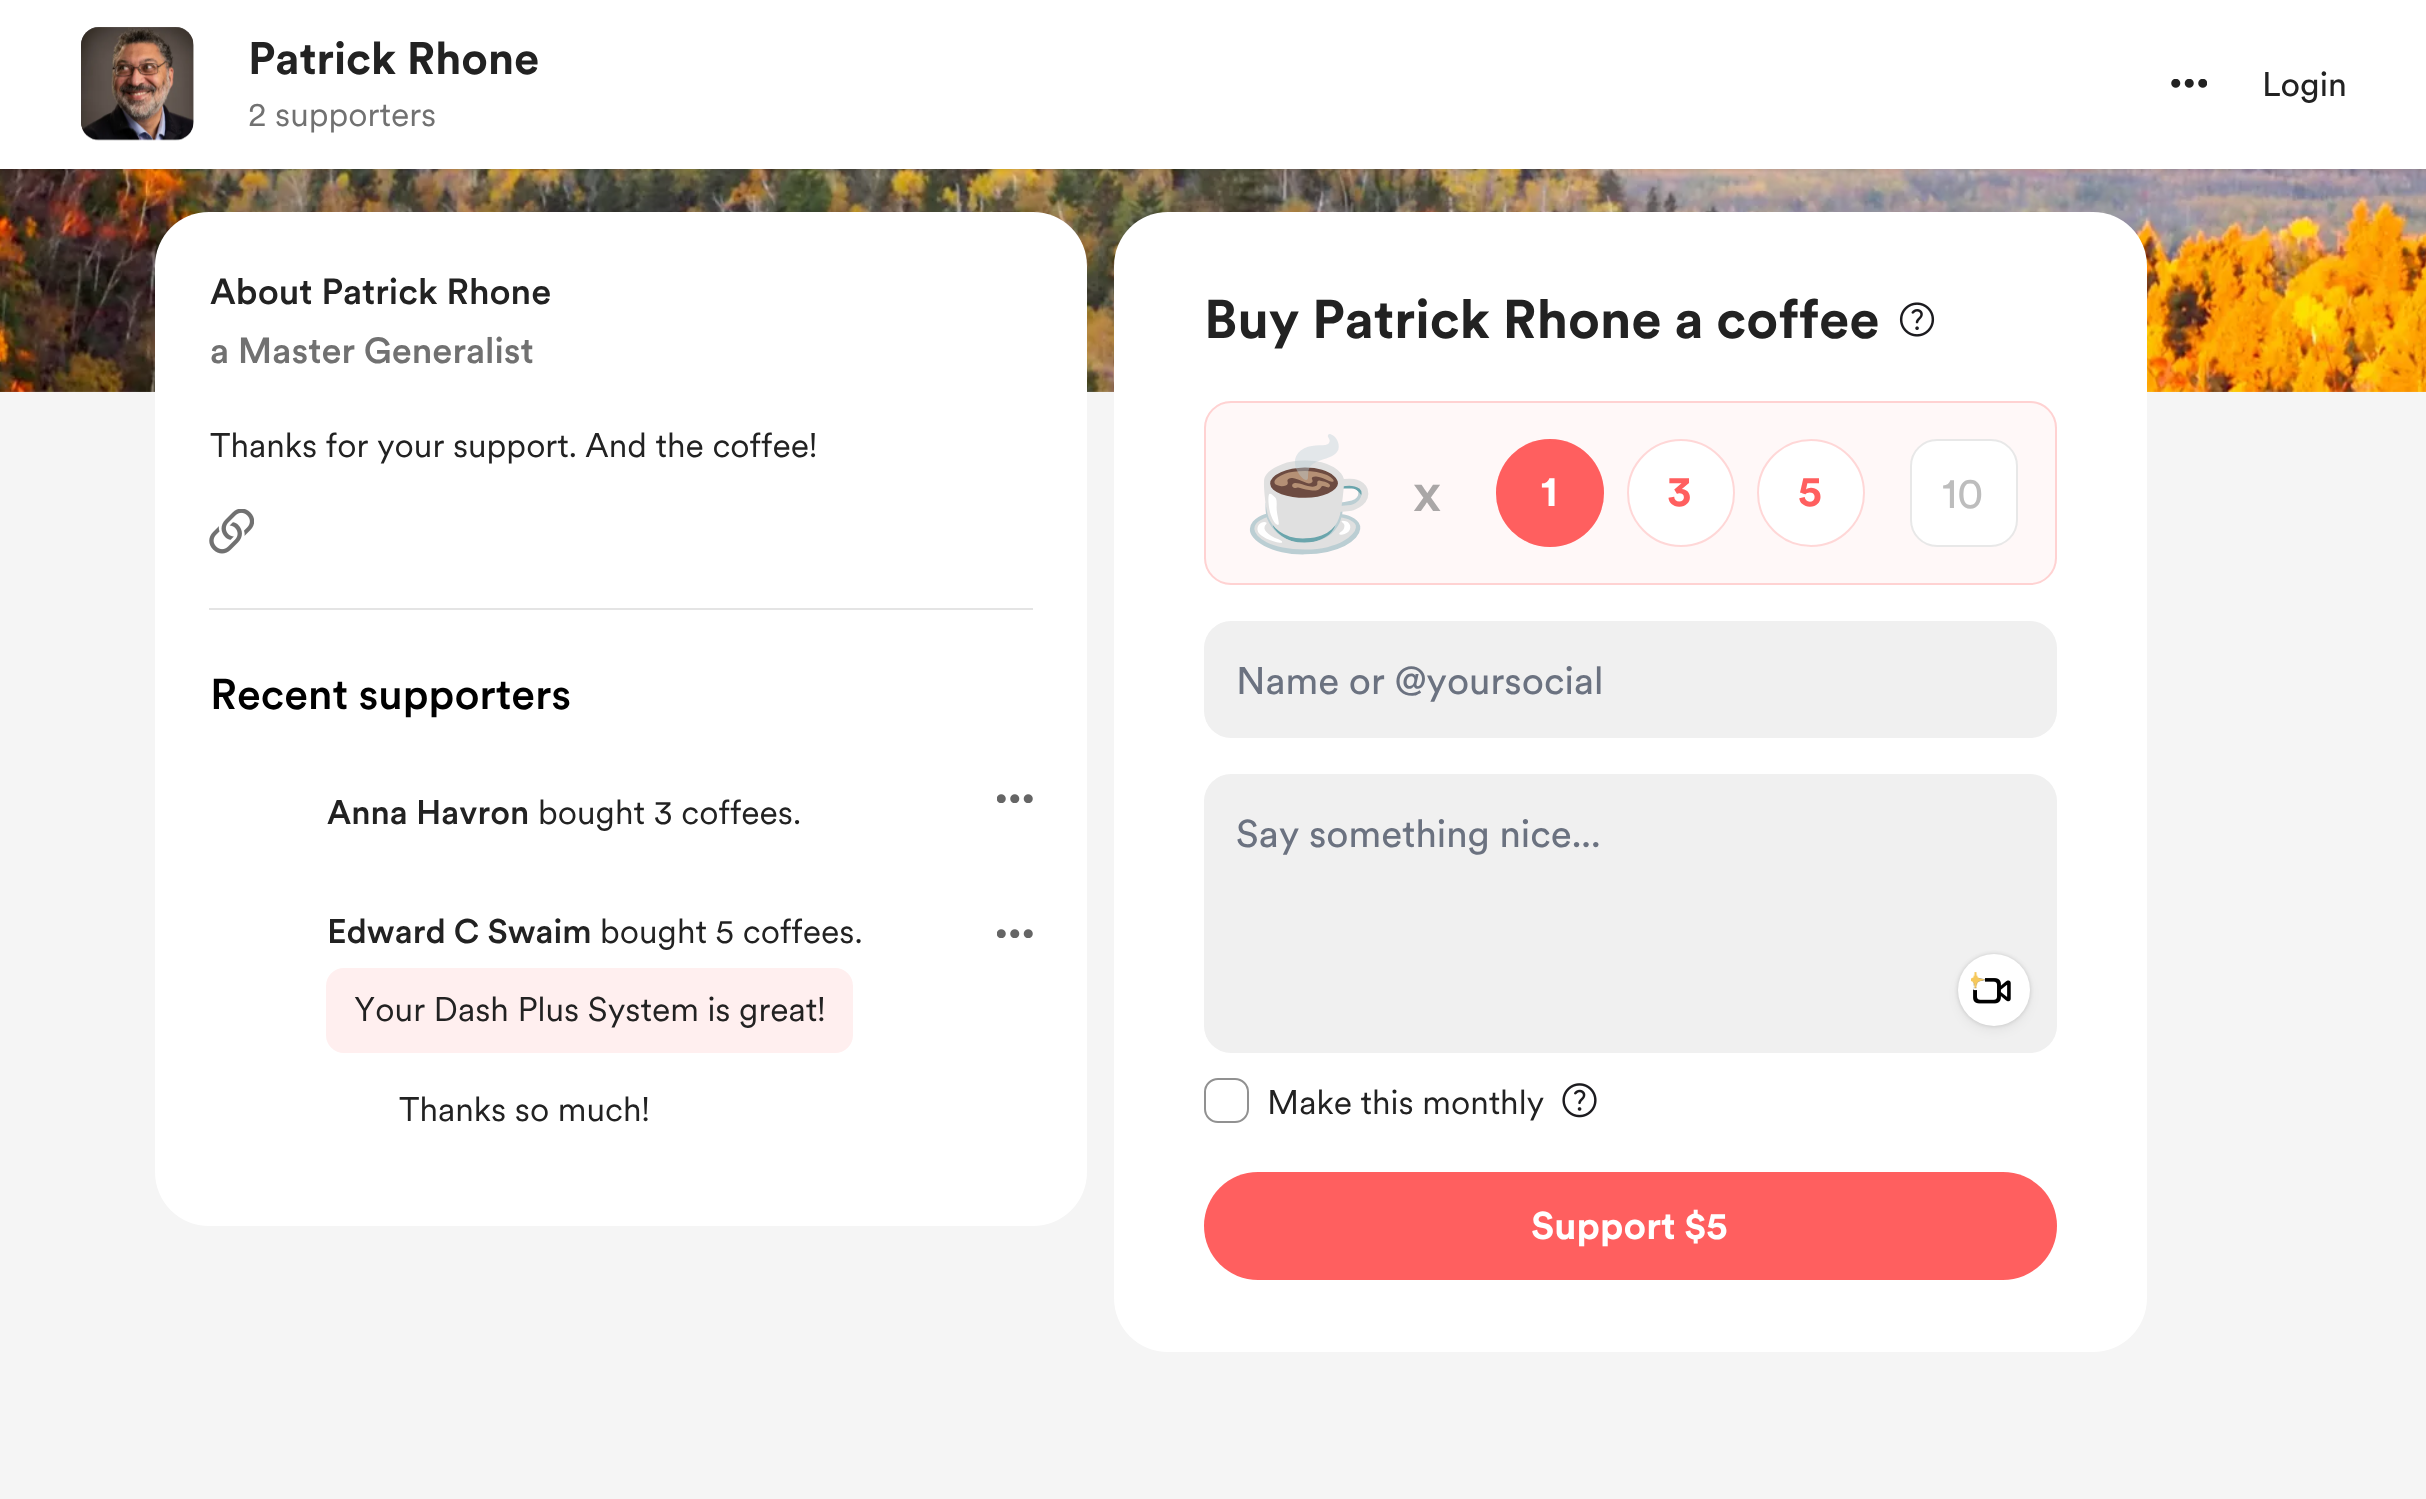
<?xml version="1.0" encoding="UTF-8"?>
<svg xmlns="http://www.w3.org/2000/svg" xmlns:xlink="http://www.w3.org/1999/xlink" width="2426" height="1499">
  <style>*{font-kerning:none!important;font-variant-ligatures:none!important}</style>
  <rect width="100%" height="100%" fill="#f5f5f5" />
  <image x="0" y="169" width="2426" height="223" xlink:href="image4.png" />
  <rect y="2" width="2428" height="169" fill="#000000" fill-opacity="0.06" filter="blur(1px)" />
  <rect width="2426" height="169" fill="#ffffff" />
  <image x="81" y="27" width="113" height="114" xlink:href="image1.png" />
  <image x="81" y="27" width="113" height="114" xlink:href="image2.png" />
  <image x="2171" y="79" width="36" height="9" xlink:href="image3.png" />
  <image x="0" y="391" width="2426" height="1" xlink:href="image5.png" />
  <rect x="155" y="212" width="932" height="1014" rx="54" fill="#ffffff" />
  <rect x="209" y="608" width="824" height="2" fill="#e4e4e4" />
  <image x="209" y="509" width="45" height="45" xlink:href="image6.png" />
  <image x="997" y="794" width="36" height="9" xlink:href="image7.png" />
  <rect x="326" y="968" width="527" height="85" rx="18" fill="#ffefef" />
  <image x="997" y="929" width="36" height="9" xlink:href="image7.png" />
  <rect x="1114" y="212" width="1033" height="1140" rx="54" fill="#ffffff" />
  <image x="1899" y="302" width="36" height="35" xlink:href="image8.png" />
  <rect x="1204" y="401" width="853" height="184" rx="27" fill="#fff8f8" />
  <rect x="1205" y="402" width="851" height="182" rx="26" fill="none" stroke="#ff5f5f" stroke-opacity="0.25" stroke-width="2" />
  <circle cx="1550" cy="493" r="54" fill="#ff5f5f" />
  <circle cx="1550" cy="493" r="53" fill="none" stroke="#ff5f5f" stroke-opacity="0.25" stroke-width="2" />
  <circle cx="1681" cy="493" r="54" fill="#ffffff" />
  <circle cx="1681" cy="493" r="53" fill="none" stroke="#ff5f5f" stroke-opacity="0.25" stroke-width="2" />
  <circle cx="1811" cy="493" r="54" fill="#ffffff" />
  <circle cx="1811" cy="493" r="53" fill="none" stroke="#ff5f5f" stroke-opacity="0.25" stroke-width="2" />
  <rect x="1910" y="439" width="108" height="108" rx="27" fill="#ffffff" />
  <rect x="1911" y="440" width="106" height="106" rx="26" fill="none" stroke="#222222" stroke-opacity="0.1" stroke-width="2" />
  <rect x="1204" y="621" width="853" height="117" rx="27" fill="#f0f0f0" />
  <rect x="1204" y="774" width="853" height="279" rx="27" fill="#f0f0f0" />
  <rect x="1958" y="959" width="72" height="72" rx="36" fill="#000000" fill-opacity="0.05" filter="blur(5.5px)" />
  <rect x="1958" y="954" width="72" height="72" rx="36" fill="#000000" fill-opacity="0.15" filter="blur(2px)" />
  <circle cx="1994" cy="990" r="36" fill="#ffffff" />
  <image x="1973" y="978" width="38" height="26" xlink:href="image10.png" />
  <image x="1971" y="972" width="14" height="19" xlink:href="image9.png" />
  <rect x="1205" y="1079" width="43" height="43" rx="13" fill="none" stroke="#919191" stroke-width="2" />
  <image x="1562" y="1083" width="35" height="35" xlink:href="image11.png" />
  <rect x="1204" y="1172" width="853" height="108" rx="54" fill="#ff5f5f" />
  <text x="248" y="74" style="font-family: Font; font-size: 45px; font-weight: bold; fill: #222222">Patrick Rhone</text>
  <text x="248" y="126" style="font-family: 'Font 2'; font-size: 33.75px; fill: #717171">2 supporters</text>
  <text x="2262" y="96" style="font-family: Font; font-size: 33.75px; fill: #222222">Login</text>
  <text x="210" y="304" style="font-family: Font; font-size: 36px; font-weight: 500; fill: #222222">About Patrick Rhone</text>
  <text x="210" y="363" style="font-family: Font; font-size: 36px; font-weight: 500; fill: #717171">a Master Generalist</text>
  <text x="210" y="457" style="font-family: 'Font 2'; font-size: 33.75px; fill: #222222">Thanks for your support.</text>
  <text x="585" y="457" style="font-family: 'Font 2'; font-size: 33.75px; fill: #222222">And the coffee!</text>
  <text x="210" y="709" style="font-family: Font; font-size: 42.75px; font-weight: 500; fill: #000000">Recent supporters</text>
  <text x="327" y="824" style="font-family: Font; font-size: 33.75px; font-weight: 500; fill: #222222">Anna Havron</text>
  <text x="538" y="824" style="font-family: 'Font 2'; font-size: 33.75px; fill: #222222">bought 3 coffees.</text>
  <text x="327" y="943" style="font-family: Font; font-size: 33.75px; font-weight: 500; fill: #222222">Edward C Swaim</text>
  <text x="600" y="943" style="font-family: 'Font 2'; font-size: 33.75px; fill: #222222">bought 5 coffees.</text>
  <text x="354" y="1021" style="font-family: 'Font 2'; font-size: 33.75px; fill: #222222">Your Dash Plus System is great!</text>
  <text x="399" y="1121" style="font-family: 'Font 2'; font-size: 33.75px; fill: #222222">Thanks so much!</text>
  <text x="1204" y="338" style="font-family: Font; font-size: 54px; font-weight: bold; fill: #222222">Buy Patrick Rhone a coffee</text>
  <text x="1242" y="532" style="font-family: Noto Color Emoji; font-size: 108px; fill: #000000">☕</text>
  <text x="1413" y="511" style="font-family: Font; font-size: 54px; font-weight: 500; fill: #aaa7a7">x</text>
  <text x="1541" y="506" style="font-family: Font; font-size: 42.75px; font-weight: bold; fill: #ffffff">1</text>
  <text x="1667" y="506" style="font-family: Font; font-size: 42.75px; font-weight: bold; fill: #ff5f5f">3</text>
  <text x="1798" y="506" style="font-family: Font; font-size: 42.75px; font-weight: bold; fill: #ff5f5f">5</text>
  <text x="1942" y="508" style="font-family: Font; font-size: 42.75px; fill: #bdbdbd">10</text>
  <text x="1236" y="694" style="font-family: Font; font-size: 38.25px; fill: #6b7280">Name or @yoursocial</text>
  <text x="1236" y="847" style="font-family: Font; font-size: 38.25px; fill: #6b7280">Say something nice...</text>
  <text x="1267" y="1114" style="font-family: 'Font 2'; font-size: 33.75px; fill: #222222">Make this monthly</text>
  <text x="1531" y="1239" style="font-family: Font; font-size: 38.25px; font-weight: bold; fill: #ffffff">Support $5</text>
</svg>
